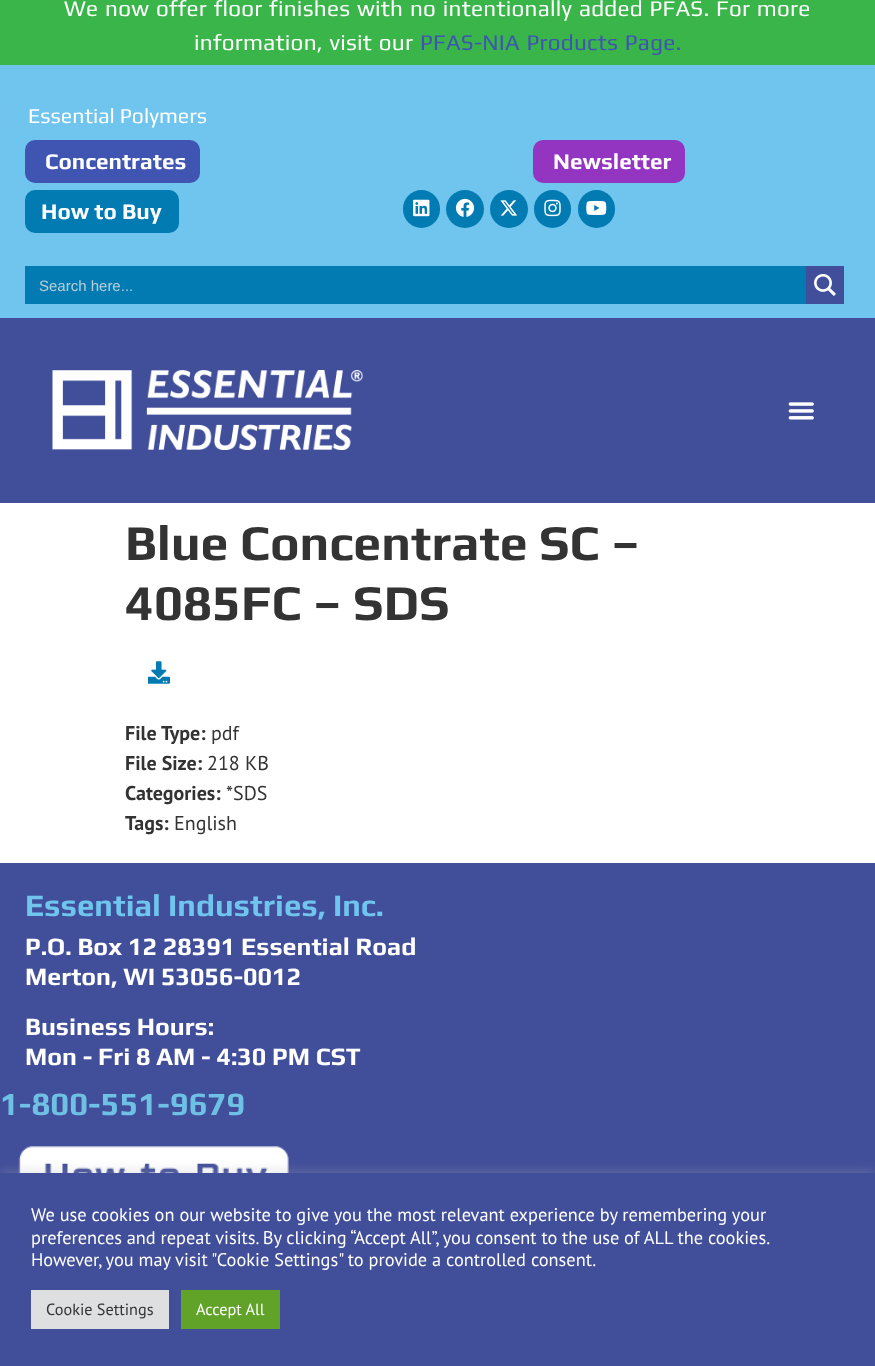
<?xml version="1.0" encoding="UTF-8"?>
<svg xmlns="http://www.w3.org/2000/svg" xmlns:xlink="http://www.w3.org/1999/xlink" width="875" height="1366">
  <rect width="100%" height="100%" fill="#ffffff" />
  <rect width="875" height="65" fill="#39b54a" />
  <rect y="65" width="875" height="253" fill="#70c5ee" />
  <rect x="25" y="140" width="175" height="43" rx="10" fill="#4054b2" />
  <rect x="533" y="140" width="152" height="43" rx="10" fill="#9435c2" />
  <rect x="25" y="190" width="154" height="43" rx="10" fill="#027bb3" />
  <rect x="403" y="190" width="37" height="38" rx="18.5" fill="#027bb3" />
  <image x="413" y="199" width="17" height="18" xlink:href="image1.png" />
  <circle cx="465" cy="209" r="19" fill="#027bb3" />
  <image x="455" y="198" width="20" height="19" xlink:href="image2.png" />
  <circle cx="509" cy="209" r="19" fill="#027bb3" />
  <image x="500" y="200" width="18" height="16" xlink:href="image3.png" />
  <rect x="534" y="190" width="37" height="38" rx="18.5" fill="#027bb3" />
  <image x="544" y="199" width="17" height="18" xlink:href="image4.png" />
  <rect x="578" y="190" width="37" height="38" rx="18.5" fill="#027bb3" />
  <image x="586" y="200" width="21" height="15" xlink:href="image5.png" />
  <rect x="25" y="266" width="781" height="38" fill="#027bb3" />
  <rect x="806" y="266" width="38" height="38" fill="#414e9a" />
  <image x="814" y="274" width="22" height="22" xlink:href="image6.png" />
  <rect y="318" width="875" height="185" fill="#414e9a" />
  <image x="52" y="370" width="311" height="80" xlink:href="image7.png" />
  <image x="788" y="402" width="26" height="18" xlink:href="image8.png" />
  <image x="148" y="661" width="22" height="23" xlink:href="image9.png" />
  <rect y="863" width="875" height="310" fill="#414e9a" />
  <image x="18" y="1146" width="271" height="27" xlink:href="image10.png" />
  <rect y="1171" width="875" height="194" fill="#acabab" fill-opacity="0.3" filter="blur(6px)" />
  <rect y="1173" width="875" height="193" fill="#414e9a" />
  <rect x="31" y="1290" width="138" height="39" fill="#dedfe0" />
  <rect x="181" y="1290" width="99" height="39" fill="#61a229" />
  <text x="64" y="16" word-spacing="1.25" style="font-family: Play; font-size: 22.5px; letter-spacing: 0.25px; fill: #ffffff">We now offer floor finishes with no intentionally added PFAS. For more</text>
  <text x="194" y="50" word-spacing="1.25" style="font-family: Play; font-size: 22.5px; letter-spacing: 0.25px; fill: #ffffff">information, visit our</text>
  <text x="420" y="50" word-spacing="1.25" style="font-family: Play; font-size: 22.5px; letter-spacing: 0.25px; fill: #4054b2">PFAS-NIA Products Page.</text>
  <text x="28" y="123" style="font-family: Play; font-size: 21.25px; fill: #ffffff">Essential Polymers</text>
  <text x="45" y="169" style="font-family: Play; font-size: 22.5px; font-weight: bold; fill: #ffffff">Concentrates</text>
  <text x="553" y="169" style="font-family: Play; font-size: 22.5px; font-weight: bold; fill: #ffffff">Newsletter</text>
  <text x="41" y="219" style="font-family: Play; font-size: 22.5px; font-weight: bold; fill: #ffffff">How to Buy</text>
  <text x="39" y="291" style="font-family: Liberation Sans; font-size: 15px; fill: #bcced7">Search here...</text>
  <text x="125" y="560" style="font-family: Play; font-size: 50px; font-weight: bold; fill: #333333">Blue Concentrate SC –</text>
  <text x="125" y="620" style="font-family: Play; font-size: 50px; font-weight: bold; fill: #333333">4085FC – SDS</text>
  <text x="125" y="740" style="font-family: PT Sans; font-size: 20px; font-weight: bold; fill: #333333">File Type:</text>
  <text x="211" y="740" style="font-family: PT Sans; font-size: 20px; fill: #333333">pdf</text>
  <text x="125" y="770" style="font-family: PT Sans; font-size: 20px; font-weight: bold; fill: #333333">File Size:</text>
  <text x="207" y="770" style="font-family: PT Sans; font-size: 20px; fill: #333333">218 KB</text>
  <text x="125" y="800" style="font-family: PT Sans; font-size: 20px; font-weight: bold; fill: #333333">Categories:</text>
  <text x="226" y="800" style="font-family: PT Sans; font-size: 20px; fill: #333333">*SDS</text>
  <text x="125" y="830" style="font-family: PT Sans; font-size: 20px; font-weight: bold; fill: #333333">Tags:</text>
  <text x="174" y="830" style="font-family: PT Sans; font-size: 20px; fill: #333333">English</text>
  <text x="25" y="916" style="font-family: Play; font-size: 31.25px; font-weight: bold; fill: #70c5ee">Essential Industries, Inc.</text>
  <text x="25" y="955" style="font-family: Play; font-size: 25px; font-weight: bold; fill: #ffffff">P.O. Box 12 28391 Essential Road</text>
  <text x="25" y="985" style="font-family: Play; font-size: 25px; font-weight: bold; fill: #ffffff">Merton, WI 53056-0012</text>
  <text x="25" y="1035" style="font-family: Play; font-size: 25px; font-weight: bold; fill: #ffffff">Business Hours:</text>
  <text x="25" y="1065" style="font-family: Play; font-size: 25px; font-weight: bold; fill: #ffffff">Mon - Fri 8 AM - 4:30 PM CST</text>
  <text x="0" y="1115" style="font-family: Play; font-size: 32.5px; font-weight: bold; fill: #6ec1e4">1-800-551-9679</text>
  <text x="31" y="1221" style="font-family: PT Sans; font-size: 18.35px; fill: #ffffff">We use cookies on our website to give you the most relevant experience by remembering your</text>
  <text x="31" y="1244" word-spacing="-0.1" style="font-family: PT Sans; font-size: 18.35px; fill: #ffffff">preferences and repeat visits. By clicking “Accept All”, you consent to the use of ALL the cookies.</text>
  <text x="31" y="1266" style="font-family: PT Sans; font-size: 18.35px; fill: #ffffff">However, you may visit "Cookie Settings" to provide a controlled consent.</text>
  <text x="46" y="1315" style="font-family: PT Sans; font-size: 16.25px; fill: #333333">Cookie Settings</text>
  <text x="196" y="1315" style="font-family: PT Sans; font-size: 16.25px; fill: #ffffff">Accept All</text>
</svg>
